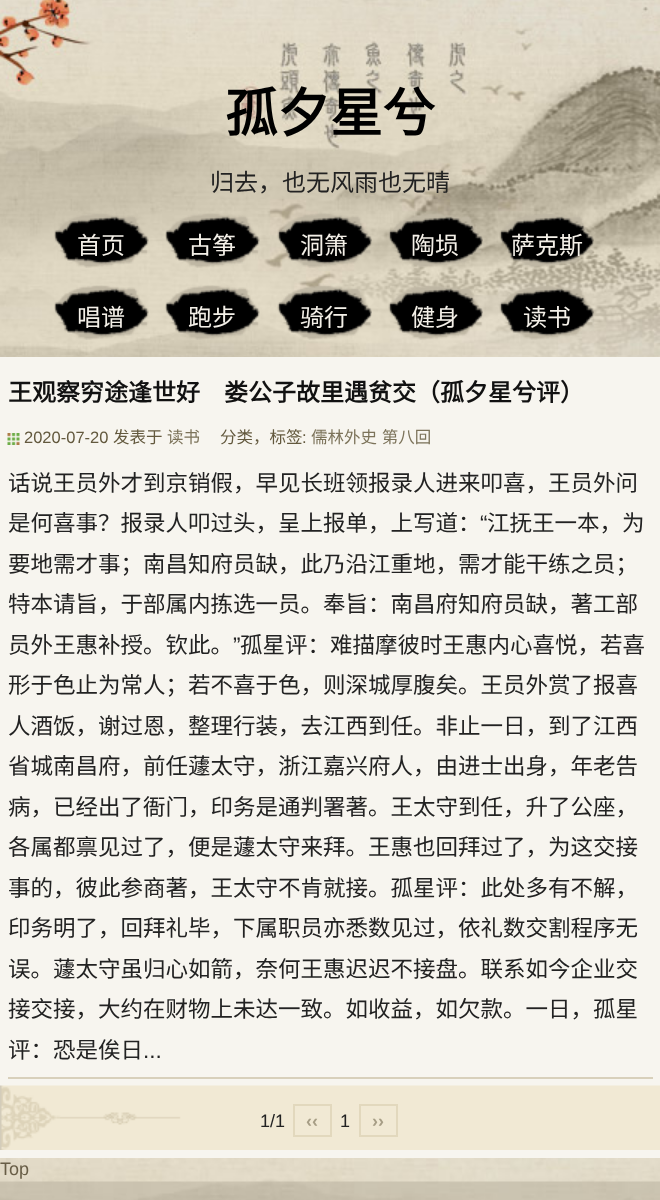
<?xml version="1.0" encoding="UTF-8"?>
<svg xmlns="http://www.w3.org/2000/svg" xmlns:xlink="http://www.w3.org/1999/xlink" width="660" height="1200">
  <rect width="100%" height="100%" fill="#ffffff" />
  <image x="0" y="0" width="660" height="357" xlink:href="image1.png" />
  <image x="54" y="213" width="95" height="55" xlink:href="image2.png" />
  <image x="165" y="213" width="95" height="55" xlink:href="image3.png" />
  <image x="277" y="213" width="95" height="55" xlink:href="image4.png" />
  <image x="388" y="213" width="95" height="55" xlink:href="image5.png" />
  <image x="499" y="214" width="95" height="54" xlink:href="image6.png" />
  <image x="54" y="285" width="95" height="55" xlink:href="image7.png" />
  <image x="165" y="285" width="95" height="55" xlink:href="image8.png" />
  <image x="277" y="284" width="95" height="56" xlink:href="image9.png" />
  <image x="388" y="285" width="95" height="55" xlink:href="image10.png" />
  <image x="499" y="285" width="95" height="55" xlink:href="image11.png" />
  <rect y="357" width="660" height="801" fill="#f7f5ef" />
  <image x="7" y="433" width="13" height="12" xlink:href="image12.png" />
  <rect x="8" y="1077" width="645" height="2" fill="#d8d0bb" />
  <image x="0" y="1085" width="660" height="65" xlink:href="image13.png" />
  <rect x="294" y="1105" width="37" height="31" fill="none" stroke="#e2d8bd" stroke-width="2" />
  <rect x="360" y="1105" width="37" height="31" fill="none" stroke="#e2d8bd" stroke-width="2" />
  <image x="0" y="1158" width="660" height="42" xlink:href="image14.png" />
  <text x="225" y="132" style="font-family: Noto Sans CJK SC; font-size: 52.5px; font-weight: bold; fill: #000000">孤夕星兮</text>
  <text x="210" y="191" style="font-family: Noto Sans CJK SC; font-size: 24px; fill: #222222">归去，也无风雨也无晴</text>
  <text x="77" y="254" style="font-family: Noto Sans CJK SC; font-size: 24px; fill: #f4f0e8">首页</text>
  <text x="188" y="254" style="font-family: Noto Sans CJK SC; font-size: 24px; fill: #f4f0e8">古筝</text>
  <text x="300" y="254" style="font-family: Noto Sans CJK SC; font-size: 24px; fill: #f4f0e8">洞箫</text>
  <text x="411" y="254" style="font-family: Noto Sans CJK SC; font-size: 24px; fill: #f4f0e8">陶埙</text>
  <text x="511" y="254" style="font-family: Noto Sans CJK SC; font-size: 24px; fill: #f4f0e8">萨克斯</text>
  <text x="77" y="326" style="font-family: Noto Sans CJK SC; font-size: 24px; fill: #f4f0e8">唱谱</text>
  <text x="188" y="326" style="font-family: Noto Sans CJK SC; font-size: 24px; fill: #f4f0e8">跑步</text>
  <text x="300" y="326" style="font-family: Noto Sans CJK SC; font-size: 24px; fill: #f4f0e8">骑行</text>
  <text x="411" y="326" style="font-family: Noto Sans CJK SC; font-size: 24px; fill: #f4f0e8">健身</text>
  <text x="523" y="326" style="font-family: Noto Sans CJK SC; font-size: 24px; fill: #f4f0e8">读书</text>
  <text x="8" y="401" style="font-family: Noto Sans CJK SC; font-size: 24px; font-weight: bold; fill: #111111">王观察穷途逢世好　娄公子故里遇贫交（孤夕星兮评）</text>
  <text x="24" y="443" style="font-family: Liberation Sans; font-size: 16.5px; fill: #63593e">2020-07-20</text>
  <text x="113" y="443" style="font-family: Noto Sans CJK SC; font-size: 16.5px; fill: #63593e">发表于</text>
  <text x="167" y="443" style="font-family: Noto Sans CJK SC; font-size: 16.5px; fill: #7c735a">读书</text>
  <text x="220" y="443" style="font-family: Noto Sans CJK SC; font-size: 16.5px; fill: #63593e">分类，标签</text>
  <text x="302" y="443" style="font-family: Liberation Sans; font-size: 16.5px; fill: #63593e">:</text>
  <text x="311" y="443" word-spacing="1" style="font-family: Noto Sans CJK SC; font-size: 16.5px; fill: #7c735a">儒林外史 第八回</text>
  <text x="8" y="491" style="font-family: Noto Sans CJK SC; font-size: 22.5px; fill: #222222">话说王员外才到京销假，早见长班领报录人进来叩喜，王员外问</text>
  <text x="8" y="531" style="font-family: Noto Sans CJK SC; font-size: 22.5px; fill: #222222">是何喜事？报录人叩过头，呈上报单，上写道：</text>
  <text x="480" y="531" style="font-family: Liberation Sans; font-size: 22.5px; fill: #222222">“</text>
  <text x="487" y="531" style="font-family: Noto Sans CJK SC; font-size: 22.5px; fill: #222222">江抚王一本，为</text>
  <text x="8" y="572" style="font-family: Noto Sans CJK SC; font-size: 22.5px; fill: #222222">要地需才事；南昌知府员缺，此乃沿江重地，需才能干练之员；</text>
  <text x="8" y="612" style="font-family: Noto Sans CJK SC; font-size: 22.5px; fill: #222222">特本请旨，于部属内拣选一员。奉旨：南昌府知府员缺，著工部</text>
  <text x="8" y="653" style="font-family: Noto Sans CJK SC; font-size: 22.5px; fill: #222222">员外王惠补授。钦此。</text>
  <text x="233" y="653" style="font-family: Liberation Sans; font-size: 22.5px; fill: #222222">”</text>
  <text x="240" y="653" style="font-family: Noto Sans CJK SC; font-size: 22.5px; fill: #222222">孤星评：难描摩彼时王惠内心喜悦，若喜</text>
  <text x="8" y="693" style="font-family: Noto Sans CJK SC; font-size: 22.5px; fill: #222222">形于色止为常人；若不喜于色，则深城厚腹矣。王员外赏了报喜</text>
  <text x="8" y="734" style="font-family: Noto Sans CJK SC; font-size: 22.5px; fill: #222222">人酒饭，谢过恩，整理行装，去江西到任。非止一日，到了江西</text>
  <text x="8" y="774" style="font-family: Noto Sans CJK SC; font-size: 22.5px; fill: #222222">省城南昌府，前任蘧太守，浙江嘉兴府人，由进士出身，年老告</text>
  <text x="8" y="815" style="font-family: Noto Sans CJK SC; font-size: 22.5px; fill: #222222">病，已经出了衙门，印务是通判署著。王太守到任，升了公座，</text>
  <text x="8" y="855" style="font-family: Noto Sans CJK SC; font-size: 22.5px; fill: #222222">各属都禀见过了，便是蘧太守来拜。王惠也回拜过了，为这交接</text>
  <text x="8" y="896" style="font-family: Noto Sans CJK SC; font-size: 22.5px; fill: #222222">事的，彼此参商著，王太守不肯就接。孤星评：此处多有不解，</text>
  <text x="8" y="936" style="font-family: Noto Sans CJK SC; font-size: 22.5px; fill: #222222">印务明了，回拜礼毕，下属职员亦悉数见过，依礼数交割程序无</text>
  <text x="8" y="977" style="font-family: Noto Sans CJK SC; font-size: 22.5px; fill: #222222">误。蘧太守虽归心如箭，奈何王惠迟迟不接盘。联系如今企业交</text>
  <text x="8" y="1017" style="font-family: Noto Sans CJK SC; font-size: 22.5px; fill: #222222">接交接，大约在财物上未达一致。如收益，如欠款。一日，孤星</text>
  <text x="8" y="1058" style="font-family: Noto Sans CJK SC; font-size: 22.5px; fill: #222222">评：恐是俟日</text>
  <text x="143" y="1058" style="font-family: Liberation Sans; font-size: 22.5px; fill: #222222">...</text>
  <text x="260" y="1127" style="font-family: Liberation Sans; font-size: 18px; fill: #222222">1/1</text>
  <text x="306" y="1127" style="font-family: Liberation Sans; font-size: 18px; font-weight: bold; fill: #a79e86">‹‹</text>
  <text x="340" y="1127" style="font-family: Liberation Sans; font-size: 18px; fill: #222222">1</text>
  <text x="372" y="1127" style="font-family: Liberation Sans; font-size: 18px; font-weight: bold; fill: #a79e86">››</text>
  <text x="0" y="1175" style="font-family: Liberation Sans; font-size: 18px; fill: #685d46">Top</text>
</svg>
